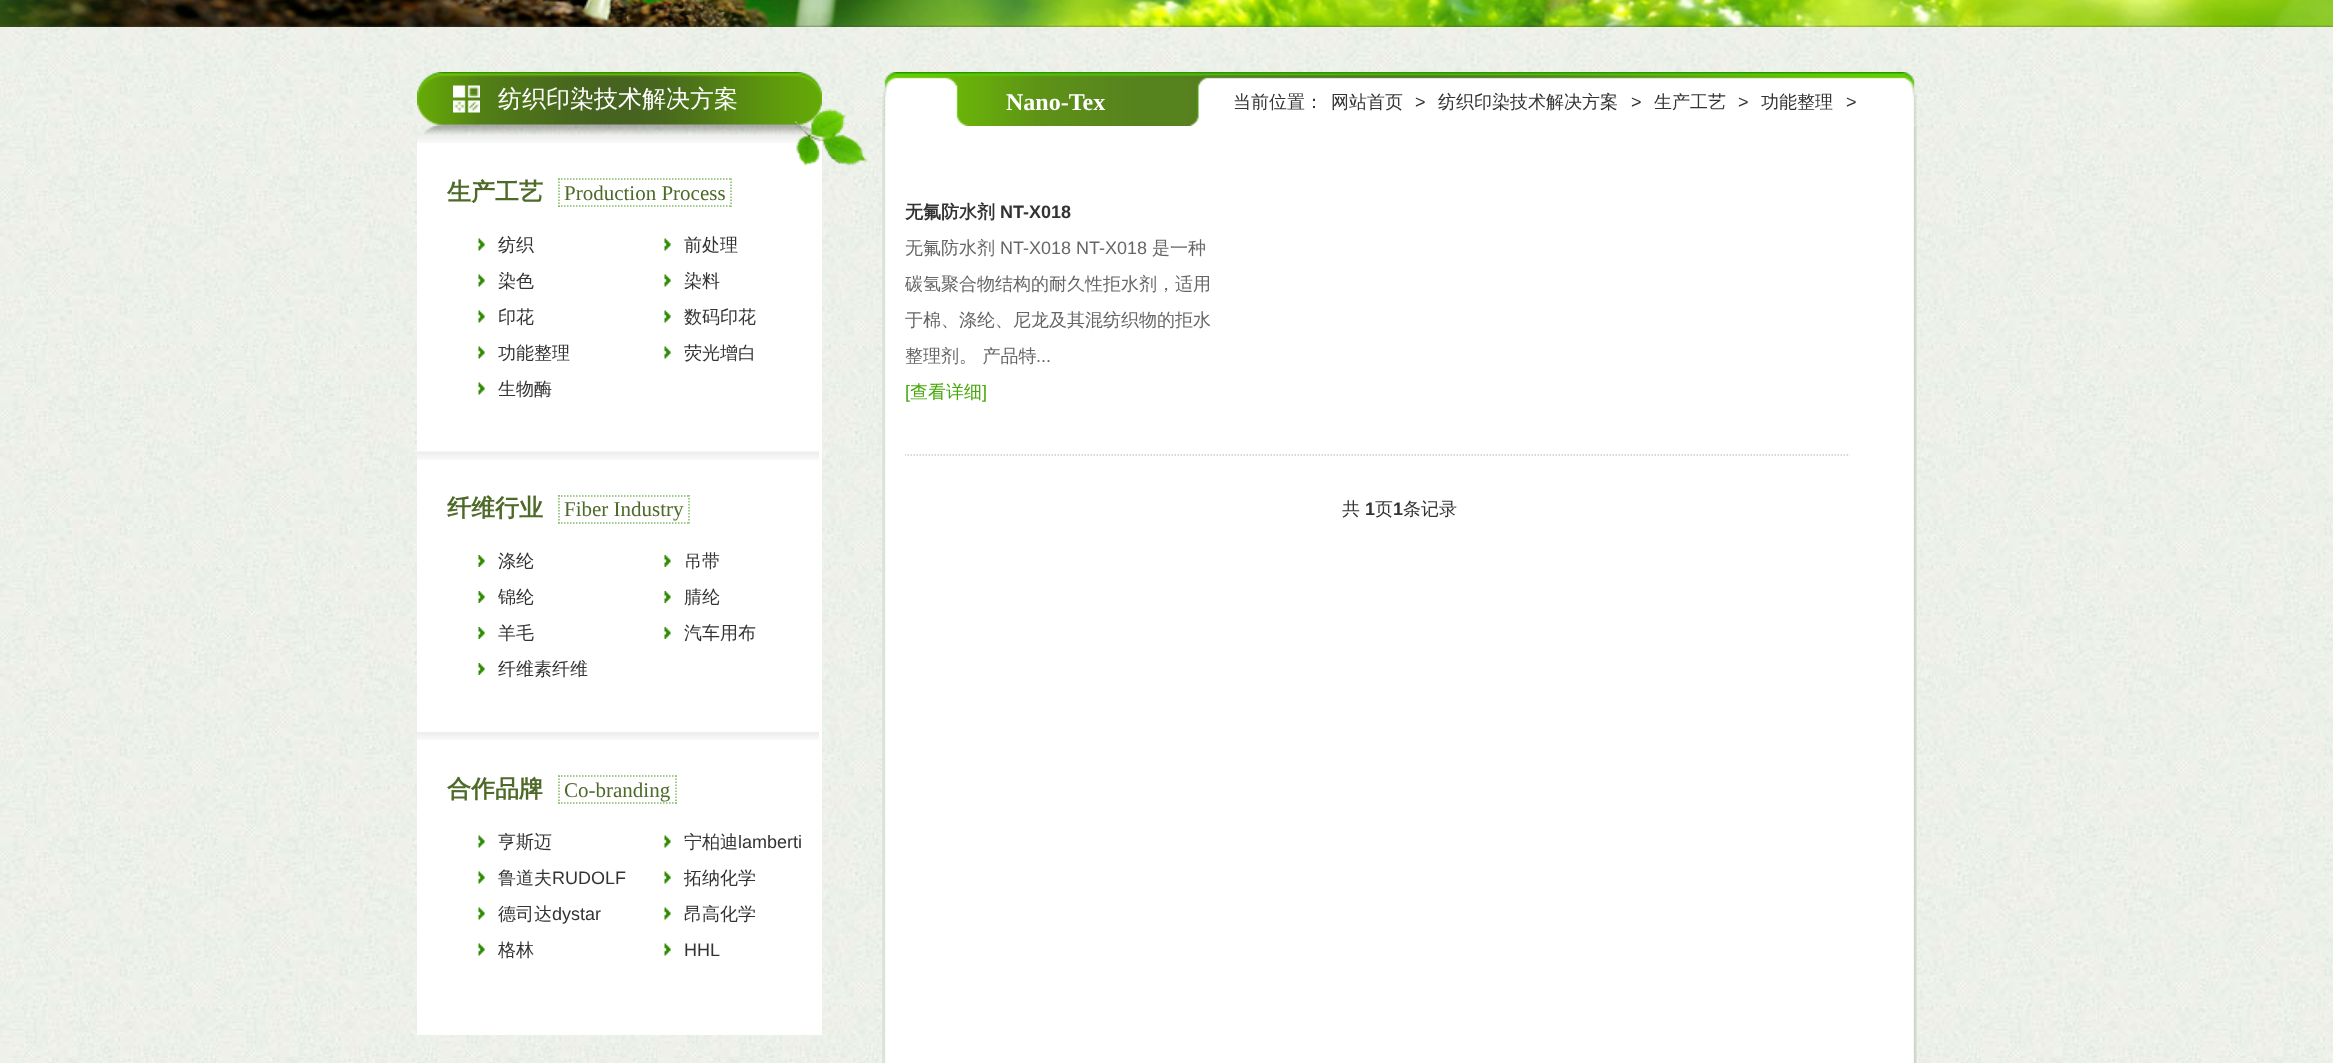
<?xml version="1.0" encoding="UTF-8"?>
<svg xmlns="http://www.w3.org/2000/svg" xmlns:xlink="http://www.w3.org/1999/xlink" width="2333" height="1063">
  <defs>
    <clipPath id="clip1"><rect x="905" y="126" width="945" height="330" /></clipPath>
  </defs>
  <rect width="100%" height="100%" fill="#ffffff" />
  <image x="0" y="27" width="2333" height="1036" xlink:href="image1.png" />
  <image x="0" y="0" width="2333" height="27" xlink:href="image2.png" />
  <image x="882" y="126" width="1035" height="937" xlink:href="image3.png" />
  <image x="417" y="72" width="405" height="63" xlink:href="image4.png" />
  <image x="453" y="85" width="27" height="28" xlink:href="image5.png" />
  <rect x="417" y="135" width="405" height="900" fill="#ffffff" />
  <image x="417" y="135" width="402" height="8" xlink:href="image7.png" />
  <image x="795" y="109" width="73" height="57" xlink:href="image6.png" />
  <path d="M 558 179 h 174" fill="none" stroke="#82b966" stroke-width="1.5" stroke-dasharray="1.5 1.5" />
  <path d="M 731 178.5 v 28.5" fill="none" stroke="#82b966" stroke-width="1.5" stroke-dasharray="1.5 1.5" />
  <path d="M 558 206 h 174" fill="none" stroke="#82b966" stroke-width="1.5" stroke-dasharray="1.5 1.5" />
  <path d="M 559 178.5 v 28.5" fill="none" stroke="#82b966" stroke-width="1.5" stroke-dasharray="1.5 1.5" />
  <image x="478" y="238" width="7" height="13" xlink:href="image8.png" />
  <image x="664" y="238" width="7" height="13" xlink:href="image9.png" />
  <image x="478" y="274" width="7" height="13" xlink:href="image8.png" />
  <image x="664" y="274" width="7" height="13" xlink:href="image9.png" />
  <image x="478" y="310" width="7" height="13" xlink:href="image8.png" />
  <image x="664" y="310" width="7" height="13" xlink:href="image9.png" />
  <image x="478" y="346" width="7" height="13" xlink:href="image8.png" />
  <image x="664" y="346" width="7" height="13" xlink:href="image9.png" />
  <image x="478" y="382" width="7" height="13" xlink:href="image8.png" />
  <image x="417" y="451" width="402" height="9" xlink:href="image10.png" />
  <path d="M 558 496 h 132" fill="none" stroke="#82b966" stroke-width="1.5" stroke-dasharray="1.5 1.5" />
  <path d="M 689 495 v 28.5" fill="none" stroke="#82b966" stroke-width="1.5" stroke-dasharray="1.5 1.5" />
  <path d="M 558 523 h 132" fill="none" stroke="#82b966" stroke-width="1.5" stroke-dasharray="1.5 1.5" />
  <path d="M 559 495 v 28.5" fill="none" stroke="#82b966" stroke-width="1.5" stroke-dasharray="1.5 1.5" />
  <image x="478" y="555" width="7" height="12" xlink:href="image11.png" />
  <image x="664" y="555" width="7" height="12" xlink:href="image12.png" />
  <image x="478" y="591" width="7" height="12" xlink:href="image11.png" />
  <image x="664" y="591" width="7" height="12" xlink:href="image12.png" />
  <image x="478" y="627" width="7" height="12" xlink:href="image11.png" />
  <image x="664" y="627" width="7" height="12" xlink:href="image12.png" />
  <image x="478" y="663" width="7" height="12" xlink:href="image11.png" />
  <image x="417" y="732" width="402" height="8" xlink:href="image7.png" />
  <path d="M 558 776 h 118.5" fill="none" stroke="#82b966" stroke-width="1.5" stroke-dasharray="1.5 1.5" />
  <path d="M 676 775.5 v 28.5" fill="none" stroke="#82b966" stroke-width="1.5" stroke-dasharray="1.5 1.5" />
  <path d="M 558 803 h 118.5" fill="none" stroke="#82b966" stroke-width="1.5" stroke-dasharray="1.5 1.5" />
  <path d="M 559 775.5 v 28.5" fill="none" stroke="#82b966" stroke-width="1.5" stroke-dasharray="1.5 1.5" />
  <image x="478" y="835" width="7" height="13" xlink:href="image8.png" />
  <image x="664" y="835" width="7" height="13" xlink:href="image9.png" />
  <image x="478" y="871" width="7" height="13" xlink:href="image8.png" />
  <image x="664" y="871" width="7" height="13" xlink:href="image9.png" />
  <image x="478" y="907" width="7" height="13" xlink:href="image8.png" />
  <image x="664" y="907" width="7" height="13" xlink:href="image9.png" />
  <image x="478" y="943" width="7" height="13" xlink:href="image8.png" />
  <image x="664" y="943" width="7" height="13" xlink:href="image9.png" />
  <image x="882" y="72" width="1035" height="54" xlink:href="image13.png" />
  <g clip-path="url(#clip1)">
    <path d="M 904.5 455 h 1050" fill="none" stroke="#cccccc" stroke-width="1.5" stroke-dasharray="1.5 1.5" />
  </g>
  <text x="498" y="107" style="font-family: WenQuanYi Zen Hei; font-size: 24px; font-weight: 500; fill: #ffffff">纺织印染技术解决方案</text>
  <text x="447" y="200" style="font-family: WenQuanYi Zen Hei; font-size: 24px; font-weight: bold; fill: #4e6a29">生产工艺</text>
  <text x="564" y="200" style="font-family: Liberation Serif; font-size: 21px; fill: #4e6a29">Production Process</text>
  <text x="498" y="251" style="font-family: WenQuanYi Zen Hei; font-size: 18px; font-weight: 500; fill: #333333">纺织</text>
  <text x="684" y="251" style="font-family: WenQuanYi Zen Hei; font-size: 18px; font-weight: 500; fill: #333333">前处理</text>
  <text x="498" y="287" style="font-family: WenQuanYi Zen Hei; font-size: 18px; font-weight: 500; fill: #333333">染色</text>
  <text x="684" y="287" style="font-family: WenQuanYi Zen Hei; font-size: 18px; font-weight: 500; fill: #333333">染料</text>
  <text x="498" y="323" style="font-family: WenQuanYi Zen Hei; font-size: 18px; font-weight: 500; fill: #333333">印花</text>
  <text x="684" y="323" style="font-family: WenQuanYi Zen Hei; font-size: 18px; font-weight: 500; fill: #333333">数码印花</text>
  <text x="498" y="359" style="font-family: WenQuanYi Zen Hei; font-size: 18px; font-weight: 500; fill: #333333">功能整理</text>
  <text x="684" y="359" style="font-family: WenQuanYi Zen Hei; font-size: 18px; font-weight: 500; fill: #333333">荧光增白</text>
  <text x="498" y="395" style="font-family: WenQuanYi Zen Hei; font-size: 18px; font-weight: 500; fill: #333333">生物酶</text>
  <text x="447" y="516" style="font-family: WenQuanYi Zen Hei; font-size: 24px; font-weight: bold; fill: #4e6a29">纤维行业</text>
  <text x="564" y="516" style="font-family: Liberation Serif; font-size: 21px; fill: #4e6a29">Fiber Industry</text>
  <text x="498" y="567" style="font-family: WenQuanYi Zen Hei; font-size: 18px; font-weight: 500; fill: #333333">涤纶</text>
  <text x="684" y="567" style="font-family: WenQuanYi Zen Hei; font-size: 18px; font-weight: 500; fill: #333333">吊带</text>
  <text x="498" y="603" style="font-family: WenQuanYi Zen Hei; font-size: 18px; font-weight: 500; fill: #333333">锦纶</text>
  <text x="684" y="603" style="font-family: WenQuanYi Zen Hei; font-size: 18px; font-weight: 500; fill: #333333">腈纶</text>
  <text x="498" y="639" style="font-family: WenQuanYi Zen Hei; font-size: 18px; font-weight: 500; fill: #333333">羊毛</text>
  <text x="684" y="639" style="font-family: WenQuanYi Zen Hei; font-size: 18px; font-weight: 500; fill: #333333">汽车用布</text>
  <text x="498" y="675" style="font-family: WenQuanYi Zen Hei; font-size: 18px; font-weight: 500; fill: #333333">纤维素纤维</text>
  <text x="447" y="797" style="font-family: WenQuanYi Zen Hei; font-size: 24px; font-weight: bold; fill: #4e6a29">合作品牌</text>
  <text x="564" y="797" style="font-family: Liberation Serif; font-size: 21px; fill: #4e6a29">Co-branding</text>
  <text x="498" y="848" style="font-family: WenQuanYi Zen Hei; font-size: 18px; font-weight: 500; fill: #333333">亨斯迈</text>
  <text x="684" y="848" style="font-family: WenQuanYi Zen Hei; font-size: 18px; font-weight: 500; fill: #333333">宁柏迪</text>
  <text x="738" y="848" style="font-family: Liberation Sans; font-size: 18px; fill: #333333">lamberti</text>
  <text x="498" y="884" style="font-family: WenQuanYi Zen Hei; font-size: 18px; font-weight: 500; fill: #333333">鲁道夫</text>
  <text x="552" y="884" style="font-family: Liberation Sans; font-size: 18px; fill: #333333">RUDOLF</text>
  <text x="684" y="884" style="font-family: WenQuanYi Zen Hei; font-size: 18px; font-weight: 500; fill: #333333">拓纳化学</text>
  <text x="498" y="920" style="font-family: WenQuanYi Zen Hei; font-size: 18px; font-weight: 500; fill: #333333">德司达</text>
  <text x="552" y="920" style="font-family: Liberation Sans; font-size: 18px; fill: #333333">dystar</text>
  <text x="684" y="920" style="font-family: WenQuanYi Zen Hei; font-size: 18px; font-weight: 500; fill: #333333">昂高化学</text>
  <text x="498" y="956" style="font-family: WenQuanYi Zen Hei; font-size: 18px; font-weight: 500; fill: #333333">格林</text>
  <text x="684" y="956" style="font-family: Liberation Sans; font-size: 18px; fill: #333333">HHL</text>
  <text x="1006" y="110" style="font-family: Liberation Serif; font-size: 24px; font-weight: bold; fill: #ffffff">Nano-Tex</text>
  <text x="1233" y="108" style="font-family: WenQuanYi Zen Hei; font-size: 18px; font-weight: 500; fill: #333333">当前位置：</text>
  <text x="1331" y="108" style="font-family: WenQuanYi Zen Hei; font-size: 18px; font-weight: 500; fill: #333333">网站首页</text>
  <text x="1415" y="108" style="font-family: Liberation Sans; font-size: 18px; fill: #333333">&gt;</text>
  <text x="1438" y="108" style="font-family: WenQuanYi Zen Hei; font-size: 18px; font-weight: 500; fill: #333333">纺织印染技术解决方案</text>
  <text x="1631" y="108" style="font-family: Liberation Sans; font-size: 18px; fill: #333333">&gt;</text>
  <text x="1654" y="108" style="font-family: WenQuanYi Zen Hei; font-size: 18px; font-weight: 500; fill: #333333">生产工艺</text>
  <text x="1738" y="108" style="font-family: Liberation Sans; font-size: 18px; fill: #333333">&gt;</text>
  <text x="1761" y="108" style="font-family: WenQuanYi Zen Hei; font-size: 18px; font-weight: 500; fill: #333333">功能整理</text>
  <text x="1846" y="108" style="font-family: Liberation Sans; font-size: 18px; fill: #333333">&gt;</text>
  <text x="905" y="218" style="font-family: WenQuanYi Zen Hei; font-size: 18px; font-weight: bold; fill: #333333">无氟防水剂</text>
  <text x="1000" y="218" style="font-family: Liberation Sans; font-size: 18px; font-weight: bold; fill: #333333">NT-X018</text>
  <text x="905" y="254" style="font-family: WenQuanYi Zen Hei; font-size: 18px; font-weight: 500; fill: #666666">无氟防水剂</text>
  <text x="1000" y="254" style="font-family: Liberation Sans; font-size: 18px; fill: #666666">NT-X018 NT-X018</text>
  <text x="1152" y="254" style="font-family: WenQuanYi Zen Hei; font-size: 18px; font-weight: 500; fill: #666666">是一种</text>
  <text x="905" y="290" style="font-family: WenQuanYi Zen Hei; font-size: 18px; font-weight: 500; fill: #666666">碳氢聚合物结构的耐久性拒水剂，适用</text>
  <text x="905" y="326" style="font-family: WenQuanYi Zen Hei; font-size: 18px; font-weight: 500; fill: #666666">于棉、涤纶、尼龙及其混纺织物的拒水</text>
  <text x="905" y="362" style="font-family: WenQuanYi Zen Hei; font-size: 18px; font-weight: 500; fill: #666666">整理剂。 产品特</text>
  <text x="1036" y="362" style="font-family: Liberation Sans; font-size: 18px; fill: #666666">...</text>
  <text x="905" y="398" style="font-family: Liberation Sans; font-size: 18px; fill: #46a80b">[</text>
  <text x="910" y="398" style="font-family: WenQuanYi Zen Hei; font-size: 18px; font-weight: 500; fill: #46a80b">查看详细</text>
  <text x="982" y="398" style="font-family: Liberation Sans; font-size: 18px; fill: #46a80b">]</text>
  <text x="1342" y="515" style="font-family: WenQuanYi Zen Hei; font-size: 18px; font-weight: 500; fill: #333333">共</text>
  <text x="1365" y="515" style="font-family: Liberation Sans; font-size: 18px; font-weight: bold; fill: #333333">1</text>
  <text x="1375" y="515" style="font-family: WenQuanYi Zen Hei; font-size: 18px; font-weight: 500; fill: #333333">页</text>
  <text x="1393" y="515" style="font-family: Liberation Sans; font-size: 18px; font-weight: bold; fill: #333333">1</text>
  <text x="1403" y="515" style="font-family: WenQuanYi Zen Hei; font-size: 18px; font-weight: 500; fill: #333333">条记录</text>
</svg>
